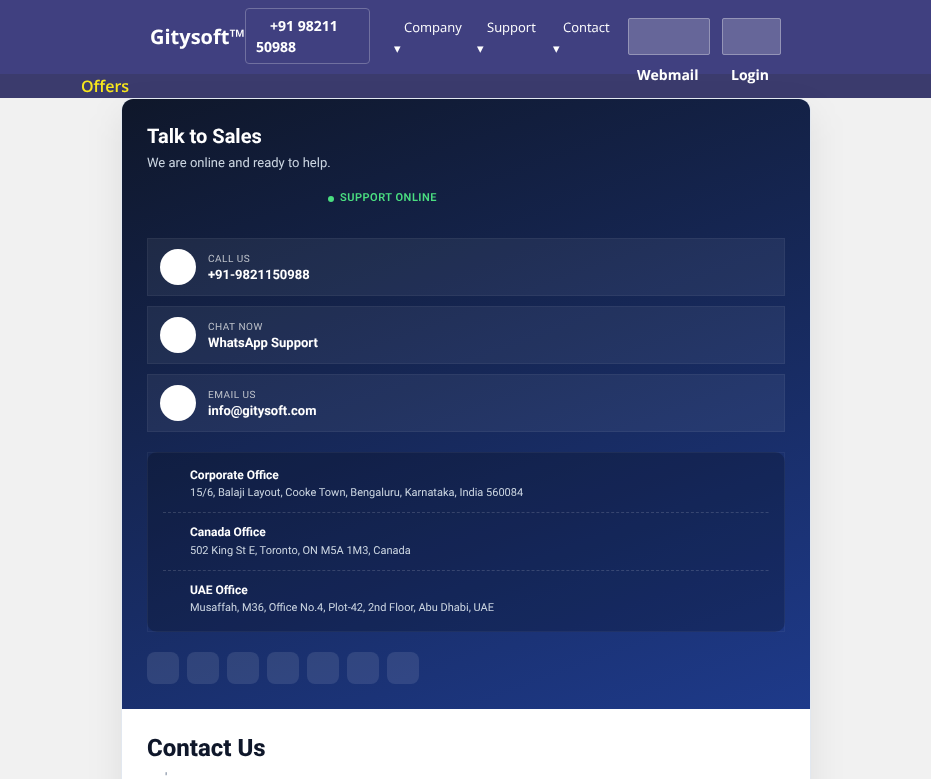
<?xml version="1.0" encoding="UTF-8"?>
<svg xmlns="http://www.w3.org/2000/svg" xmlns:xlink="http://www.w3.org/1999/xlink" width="931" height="779">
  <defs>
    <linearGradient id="g1" gradientUnits="userSpaceOnUse" x1="328" y1="24" x2="604" y2="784"><stop offset="0" stop-color="#0f172a" /><stop offset="1" stop-color="#1e3a8a" /></linearGradient>
  </defs>
  <rect width="100%" height="100%" fill="#f1f1f1" />
  <rect width="931" height="74" fill="#404080" />
  <rect x="245.5" y="8.5" width="124" height="55" rx="3.5" fill="none" stroke="#7070a0" />
  <rect x="628" y="18" width="82" height="37" rx="2" fill="#666699" />
  <rect x="628.5" y="18.5" width="81" height="36" rx="1.5" fill="none" stroke="#ffffff" stroke-opacity="0.3" />
  <rect x="722" y="18" width="59" height="37" rx="2" fill="#666699" />
  <rect x="722.5" y="18.5" width="58" height="36" rx="1.5" fill="none" stroke="#ffffff" stroke-opacity="0.3" />
  <rect y="74" width="931" height="24" fill="#3b3b6d" />
  <rect x="121" y="113" width="690" height="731" rx="12" fill="#000000" fill-opacity="0.08" filter="blur(17.5px)" />
  <rect x="121.5" y="98.5" width="689" height="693" rx="11.5" fill="#ffffff" stroke="#e2e8f0" />
  <path d="M 133 99 h 666 c 6 0 11 5 11 11 v 599 h -688 v -599 c 0 -6 5 -11 11 -11 z" fill="url(#g1)" />
  <circle cx="331" cy="199" r="3" fill="#4ade80" />
  <rect x="147" y="238" width="638" height="58" fill="#ffffff" fill-opacity="0.06" />
  <rect x="147.5" y="238.5" width="637" height="57" fill="none" stroke="#ffffff" stroke-opacity="0.05" />
  <circle cx="178" cy="267" r="18" fill="#ffffff" />
  <rect x="147" y="306" width="638" height="58" fill="#ffffff" fill-opacity="0.06" />
  <rect x="147.5" y="306.5" width="637" height="57" fill="none" stroke="#ffffff" stroke-opacity="0.05" />
  <circle cx="178" cy="335" r="18" fill="#ffffff" />
  <rect x="147" y="374" width="638" height="58" fill="#ffffff" fill-opacity="0.06" />
  <rect x="147.5" y="374.5" width="637" height="57" fill="none" stroke="#ffffff" stroke-opacity="0.05" />
  <circle cx="178" cy="403" r="18" fill="#ffffff" />
  <rect x="147" y="452" width="638" height="180" rx="10" fill="#000000" fill-opacity="0.2" />
  <rect x="147.5" y="452.5" width="637" height="179" fill="none" stroke="#ffffff" stroke-opacity="0.05" />
  <path d="M 163 512.5 h 606" fill="none" stroke="#ffffff" stroke-opacity="0.15" stroke-dasharray="3 1.98" />
  <path d="M 163 570.5 h 606" fill="none" stroke="#ffffff" stroke-opacity="0.15" stroke-dasharray="3 1.98" />
  <rect x="147" y="652" width="32" height="32" rx="8" fill="#ffffff" fill-opacity="0.1" />
  <rect x="187" y="652" width="32" height="32" rx="8" fill="#ffffff" fill-opacity="0.1" />
  <rect x="227" y="652" width="32" height="32" rx="8" fill="#ffffff" fill-opacity="0.1" />
  <rect x="267" y="652" width="32" height="32" rx="8" fill="#ffffff" fill-opacity="0.1" />
  <rect x="307" y="652" width="32" height="32" rx="8" fill="#ffffff" fill-opacity="0.1" />
  <rect x="347" y="652" width="32" height="32" rx="8" fill="#ffffff" fill-opacity="0.1" />
  <rect x="387" y="652" width="32" height="32" rx="8" fill="#ffffff" fill-opacity="0.1" />
  <text x="150" y="44" style="font-family: Open Sans; font-size: 20px; font-weight: bold; fill: #ffffff">Gitysoft™</text>
  <text x="270" y="31" style="font-family: Open Sans; font-size: 14px; font-weight: bold; fill: #ffffff">+91 98211</text>
  <text x="256" y="52" style="font-family: Open Sans; font-size: 14px; font-weight: bold; fill: #ffffff">50988</text>
  <text x="404" y="32" style="font-family: Open Sans; font-size: 13px; fill: #ffffff">Company</text>
  <text x="394" y="53" style="font-family: DejaVu Sans; font-size: 13px; fill: #ffffff">▾</text>
  <text x="487" y="32" style="font-family: Open Sans; font-size: 13px; fill: #ffffff">Support</text>
  <text x="477" y="53" style="font-family: DejaVu Sans; font-size: 13px; fill: #ffffff">▾</text>
  <text x="563" y="32" style="font-family: Open Sans; font-size: 13px; fill: #ffffff">Contact</text>
  <text x="553" y="53" style="font-family: DejaVu Sans; font-size: 13px; fill: #ffffff">▾</text>
  <text x="637" y="80" style="font-family: Open Sans; font-size: 14px; font-weight: bold; fill: #ffffff">Webmail</text>
  <text x="731" y="80" style="font-family: Open Sans; font-size: 14px; font-weight: bold; fill: #ffffff">Login</text>
  <text x="81" y="92" style="font-family: Open Sans; font-size: 16px; font-weight: 600; fill: #f8e71c">Offers</text>
  <text x="147" y="143" style="font-family: Roboto; font-size: 20px; font-weight: bold; fill: #ffffff">Talk to Sales</text>
  <text x="147" y="167" style="font-family: Roboto; font-size: 13px; fill: #cbd5e1">We are online and ready to help.</text>
  <text x="340" y="201" style="font-family: Roboto; font-size: 11px; font-weight: 600; letter-spacing: 0.5px; fill: #4ade80">SUPPORT ONLINE</text>
  <text x="208" y="262" style="font-family: Roboto; font-size: 10px; letter-spacing: 0.5px; fill: #bcc0c9">CALL US</text>
  <text x="208" y="279" style="font-family: Roboto; font-size: 13px; font-weight: bold; fill: #ffffff">+91-9821150988</text>
  <text x="208" y="330" style="font-family: Roboto; font-size: 10px; letter-spacing: 0.5px; fill: #bcc0c9">CHAT NOW</text>
  <text x="208" y="347" style="font-family: Roboto; font-size: 13px; font-weight: bold; fill: #ffffff">WhatsApp Support</text>
  <text x="208" y="398" style="font-family: Roboto; font-size: 10px; letter-spacing: 0.5px; fill: #bcc0c9">EMAIL US</text>
  <text x="208" y="415" style="font-family: Roboto; font-size: 13px; font-weight: bold; fill: #ffffff">info@gitysoft.com</text>
  <text x="190" y="479" style="font-family: Roboto; font-size: 12px; font-weight: bold; fill: #ffffff">Corporate Office</text>
  <text x="190" y="496" style="font-family: Roboto; font-size: 11px; fill: #cbd5e1">15/6, Balaji Layout, Cooke Town, Bengaluru, Karnataka, India 560084</text>
  <text x="190" y="536" style="font-family: Roboto; font-size: 12px; font-weight: bold; fill: #ffffff">Canada Office</text>
  <text x="190" y="554" style="font-family: Roboto; font-size: 11px; fill: #cbd5e1">502 King St E, Toronto, ON M5A 1M3, Canada</text>
  <text x="190" y="594" style="font-family: Roboto; font-size: 12px; font-weight: bold; fill: #ffffff">UAE Office</text>
  <text x="190" y="611" style="font-family: Roboto; font-size: 11px; fill: #cbd5e1">Musaffah, M36, Office No.4, Plot-42, 2nd Floor, Abu Dhabi, UAE</text>
  <text x="147" y="756" style="font-family: Roboto; font-size: 24px; font-weight: 800; fill: #0f172a">Contact Us</text>
  <text x="165" y="782" style="font-family: Roboto; font-size: 13px; fill: #64748b">'</text>
</svg>
